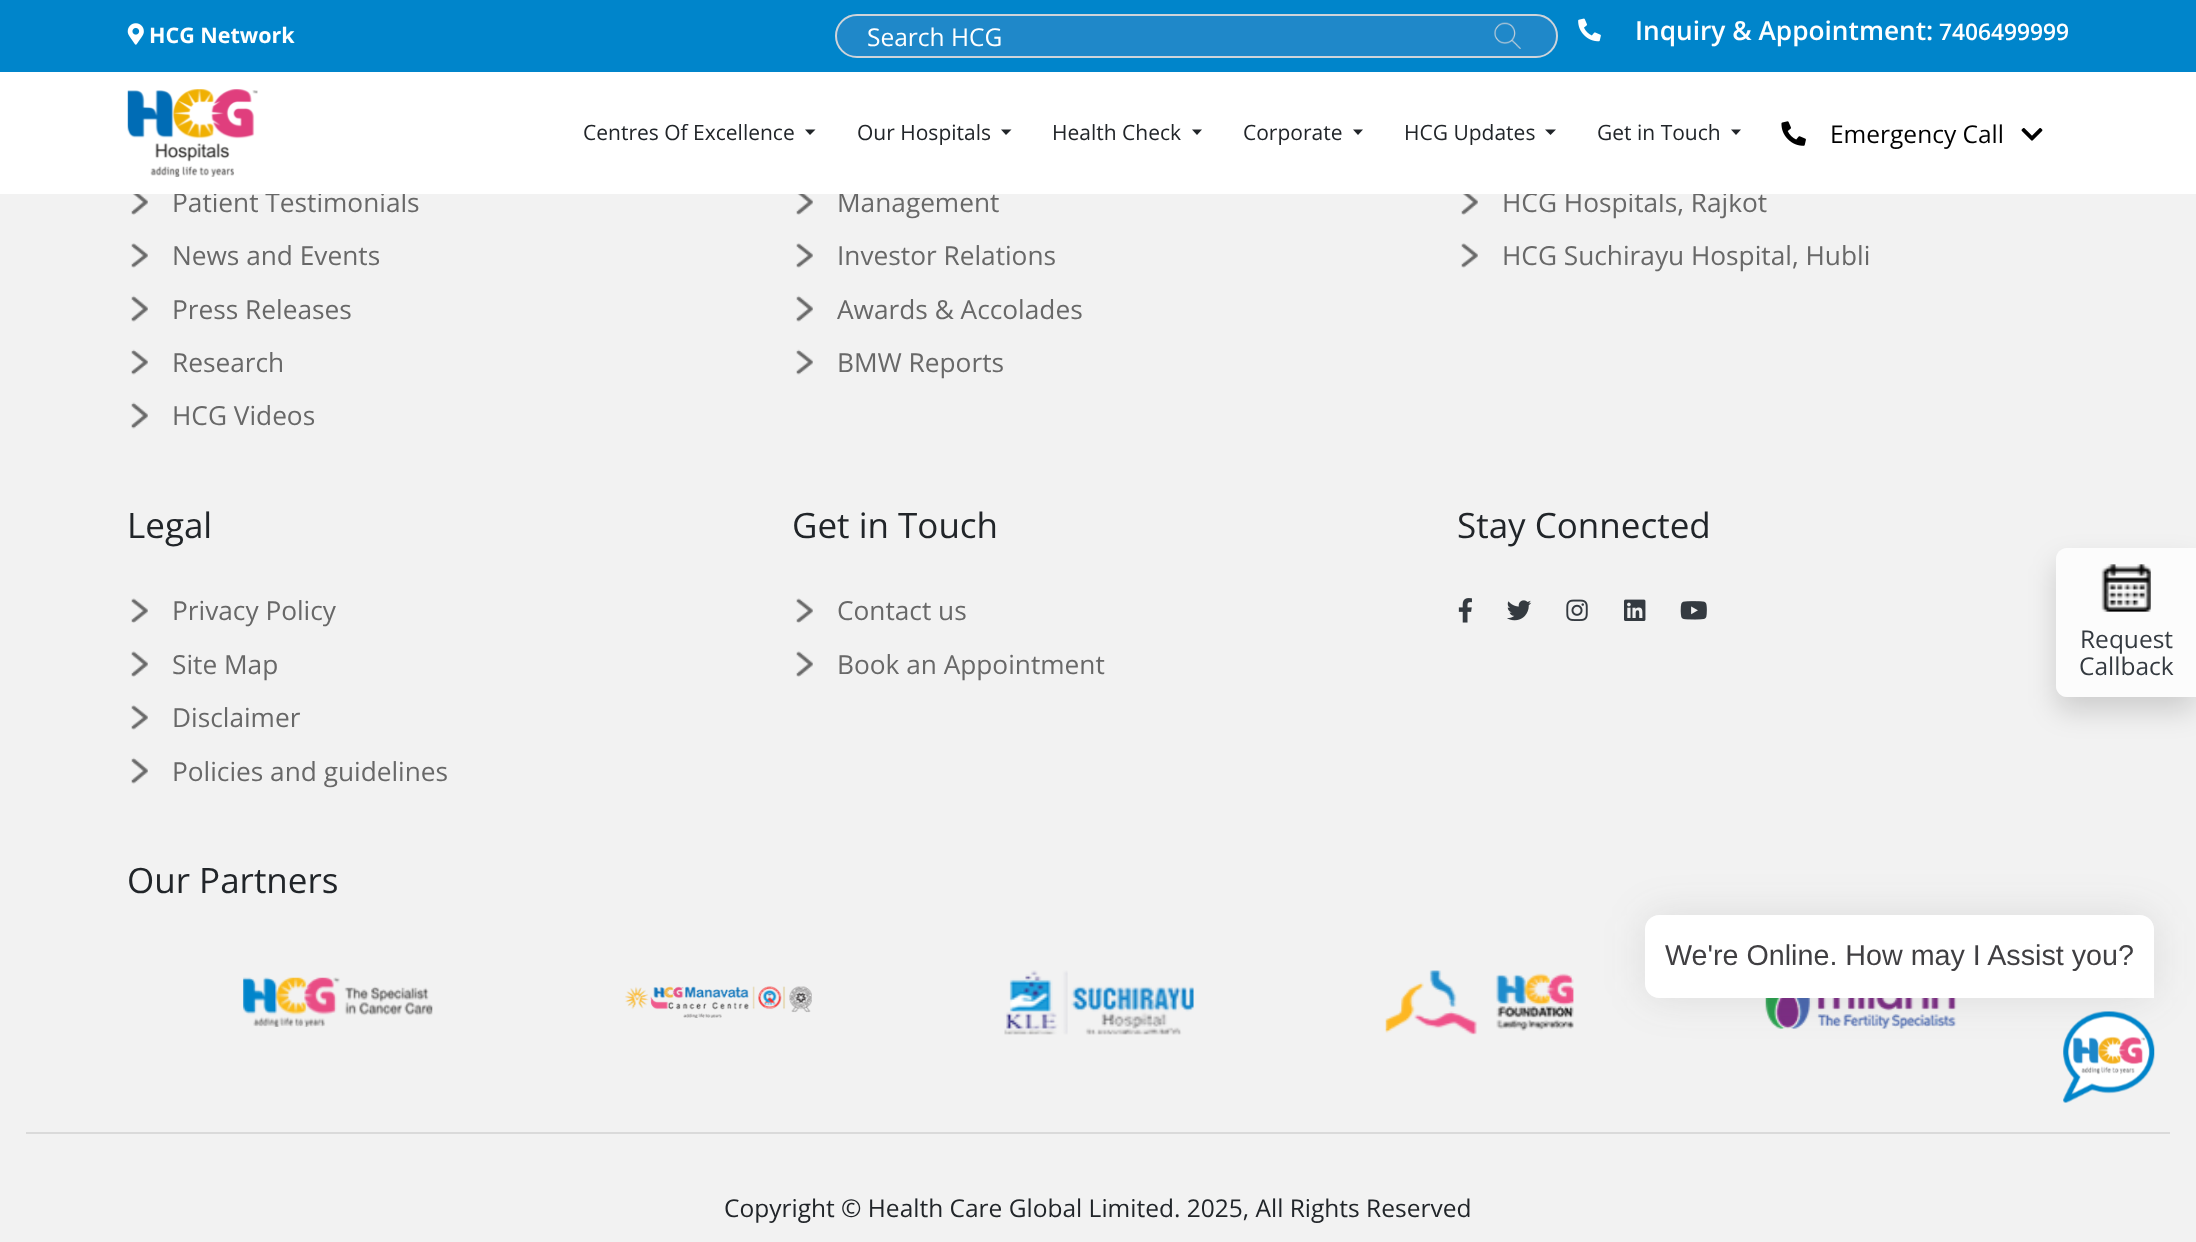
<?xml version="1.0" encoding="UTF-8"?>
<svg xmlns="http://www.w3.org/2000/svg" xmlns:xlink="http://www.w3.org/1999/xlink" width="2196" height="1242">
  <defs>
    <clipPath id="clip1"><path d="M 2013 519 h 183 v 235 h -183 z m 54 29 h 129 v 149 h -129 c -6 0 -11 -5 -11 -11 v -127 c 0 -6 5 -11 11 -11 z" clip-rule="evenodd" /></clipPath>
  </defs>
  <rect width="100%" height="100%" fill="#f2f2f2" />
  <rect width="2196" height="72" fill="#0085cb" />
  <image x="127" y="23" width="17" height="22" xlink:href="image1.png" />
  <rect x="835" y="14" width="723" height="44" rx="22" fill="#1f88c9" />
  <image x="1494" y="22" width="27" height="27" xlink:href="image2.png" />
  <rect x="836" y="15" width="721" height="42" rx="21" fill="none" stroke="#ced4da" stroke-width="2" />
  <image x="1578" y="18" width="23" height="24" xlink:href="image3.png" />
  <image x="131" y="194" width="17" height="21" xlink:href="image7.png" />
  <image x="131" y="243" width="17" height="25" xlink:href="image8.png" />
  <image x="131" y="295" width="17" height="27" xlink:href="image9.png" />
  <image x="131" y="349" width="17" height="26" xlink:href="image10.png" />
  <image x="131" y="402" width="17" height="27" xlink:href="image11.png" />
  <image x="796" y="194" width="17" height="21" xlink:href="image7.png" />
  <image x="796" y="243" width="17" height="25" xlink:href="image8.png" />
  <image x="796" y="295" width="17" height="27" xlink:href="image9.png" />
  <image x="796" y="349" width="17" height="26" xlink:href="image10.png" />
  <image x="1461" y="194" width="17" height="21" xlink:href="image7.png" />
  <image x="1461" y="243" width="17" height="25" xlink:href="image8.png" />
  <image x="131" y="598" width="17" height="25" xlink:href="image12.png" />
  <image x="131" y="651" width="17" height="26" xlink:href="image13.png" />
  <image x="131" y="705" width="17" height="25" xlink:href="image8.png" />
  <image x="131" y="757" width="17" height="27" xlink:href="image9.png" />
  <image x="796" y="598" width="17" height="25" xlink:href="image12.png" />
  <image x="796" y="651" width="17" height="26" xlink:href="image13.png" />
  <image x="1458" y="598" width="14" height="25" xlink:href="image14.png" />
  <image x="1507" y="600" width="25" height="21" xlink:href="image15.png" />
  <image x="1566" y="599" width="22" height="22" xlink:href="image16.png" />
  <image x="1624" y="599" width="22" height="22" xlink:href="image17.png" />
  <image x="1680" y="601" width="27" height="19" xlink:href="image18.png" />
  <image x="243" y="977" width="190" height="50" xlink:href="image19.png" />
  <image x="625" y="986" width="187" height="32" xlink:href="image20.png" />
  <image x="1004" y="970" width="190" height="65" xlink:href="image21.png" />
  <image x="1385" y="970" width="189" height="65" xlink:href="image22.png" />
  <image x="1765" y="998" width="192" height="31" xlink:href="image23.png" />
  <rect x="26" y="1132" width="2144" height="2" fill="#dadada" />
  <g clip-path="url(#clip1)">
    <rect x="2056" y="562" width="140" height="149" rx="11" fill="#000000" fill-opacity="0.15" filter="blur(14px)" />
  </g>
  <path d="M 2067 548 h 129 v 149 h -129 c -6 0 -11 -5 -11 -11 v -127 c 0 -6 5 -11 11 -11 z" fill="#ffffff" fill-opacity="0.76" />
  <image x="2101" y="564" width="50" height="48" xlink:href="image24.png" />
  <rect x="1645" y="915" width="509" height="83" rx="14" fill="#403f42" fill-opacity="0.12" filter="blur(21px)" />
  <path d="M 1659 915 h 481 c 7.5 0 14 6.5 14 14 v 69 h -495 c -7.5 0 -14 -6.5 -14 -14 v -55 c 0 -7.5 6.5 -14 14 -14 z" fill="#ffffff" />
  <image x="2063" y="1011" width="92" height="92" xlink:href="image25.png" />
  <text x="149" y="43" style="font-family: Open Sans; font-size: 21.5px; font-weight: bold; fill: #ffffff">HCG Network</text>
  <text x="867" y="46" style="font-family: Open Sans; font-size: 24.5px; fill: #ffffff">Search HCG</text>
  <text x="1635" y="40" style="font-family: Open Sans; font-size: 26.25px; font-weight: 600; fill: #ffffff">Inquiry &amp; Appointment:</text>
  <text x="1939" y="40" style="font-family: Open Sans; font-size: 22.75px; font-weight: 600; fill: #ffffff">7406499999</text>
  <text x="172" y="212" style="font-family: Open Sans; font-size: 26.25px; fill: #686868">Patient Testimonials</text>
  <text x="172" y="265" style="font-family: Open Sans; font-size: 26.25px; fill: #686868">News and Events</text>
  <text x="172" y="319" style="font-family: Open Sans; font-size: 26.25px; fill: #686868">Press Releases</text>
  <text x="172" y="372" style="font-family: Open Sans; font-size: 26.25px; fill: #686868">Research</text>
  <text x="172" y="425" style="font-family: Open Sans; font-size: 26.25px; fill: #686868">HCG Videos</text>
  <text x="837" y="212" style="font-family: Open Sans; font-size: 26.25px; fill: #686868">Management</text>
  <text x="837" y="265" style="font-family: Open Sans; font-size: 26.25px; fill: #686868">Investor Relations</text>
  <text x="837" y="319" style="font-family: Open Sans; font-size: 26.25px; fill: #686868">Awards &amp; Accolades</text>
  <text x="837" y="372" style="font-family: Open Sans; font-size: 26.25px; fill: #686868">BMW Reports</text>
  <text x="1502" y="212" style="font-family: Open Sans; font-size: 26.25px; fill: #686868">HCG Hospitals, Rajkot</text>
  <rect y="72" width="2196" height="122" fill="#ffffff" />
  <image x="1781" y="121" width="25" height="25" xlink:href="image5.png" />
  <path d="M 1731 129.5 h 10 l -5 5.5 z" fill="#212529" />
  <text x="1597" y="140" style="font-family: Open Sans; font-size: 21px; fill: #212529">Get in Touch</text>
  <path d="M 1545 129.5 h 11 l -5.5 5.5 z" fill="#212529" />
  <text x="1404" y="140" style="font-family: Open Sans; font-size: 21px; fill: #212529">HCG Updates</text>
  <path d="M 1353 129.5 h 10 l -5 5.5 z" fill="#212529" />
  <text x="1243" y="140" style="font-family: Open Sans; font-size: 21px; fill: #212529">Corporate</text>
  <path d="M 1192 129.5 h 10 l -5 5.5 z" fill="#212529" />
  <text x="1052" y="140" style="font-family: Open Sans; font-size: 21px; fill: #212529">Health Check</text>
  <path d="M 1001 129.5 h 10.5 l -5.5 5.5 z" fill="#212529" />
  <text x="857" y="140" style="font-family: Open Sans; font-size: 21px; fill: #212529">Our Hospitals</text>
  <image x="2021" y="128" width="22" height="13" xlink:href="image6.png" />
  <text x="1830" y="143" style="font-family: Open Sans; font-size: 24.5px; fill: #000000">Emergency Call</text>
  <path d="M 805 129.5 h 10.5 l -5.5 5.5 z" fill="#212529" />
  <text x="583" y="140" style="font-family: Open Sans; font-size: 21px; fill: #212529">Centres Of Excellence</text>
  <image x="127" y="89" width="131" height="88" xlink:href="image4.png" />
  <text x="1502" y="265" style="font-family: Open Sans; font-size: 26.25px; fill: #686868">HCG Suchirayu Hospital, Hubli</text>
  <text x="127" y="538" style="font-family: Open Sans; font-size: 35px; fill: #212529">Legal</text>
  <text x="172" y="620" style="font-family: Open Sans; font-size: 26.25px; fill: #686868">Privacy Policy</text>
  <text x="172" y="674" style="font-family: Open Sans; font-size: 26.25px; fill: #686868">Site Map</text>
  <text x="172" y="727" style="font-family: Open Sans; font-size: 26.25px; fill: #686868">Disclaimer</text>
  <text x="172" y="781" style="font-family: Open Sans; font-size: 26.25px; fill: #686868">Policies and guidelines</text>
  <text x="792" y="538" style="font-family: Open Sans; font-size: 35px; fill: #212529">Get in Touch</text>
  <text x="837" y="620" style="font-family: Open Sans; font-size: 26.25px; fill: #686868">Contact us</text>
  <text x="837" y="674" style="font-family: Open Sans; font-size: 26.25px; fill: #686868">Book an Appointment</text>
  <text x="1457" y="538" style="font-family: Open Sans; font-size: 35px; fill: #212529">Stay Connected</text>
  <text x="127" y="893" style="font-family: Open Sans; font-size: 35px; fill: #212529">Our Partners</text>
  <text x="2080" y="648" style="font-family: Open Sans; font-size: 24.5px; fill: #343a40">Request</text>
  <text x="2079" y="675" style="font-family: Open Sans; font-size: 24.5px; fill: #343a40">Callback</text>
  <text x="1665" y="965" style="font-family: Liberation Sans; font-size: 28.7px; fill: #403f42">We're Online. How may I Assist you?</text>
  <text x="724" y="1217" style="font-family: Open Sans; font-size: 24.5px; fill: #212529">Copyright © Health Care Global Limited. 2025, All Rights Reserved</text>
</svg>
